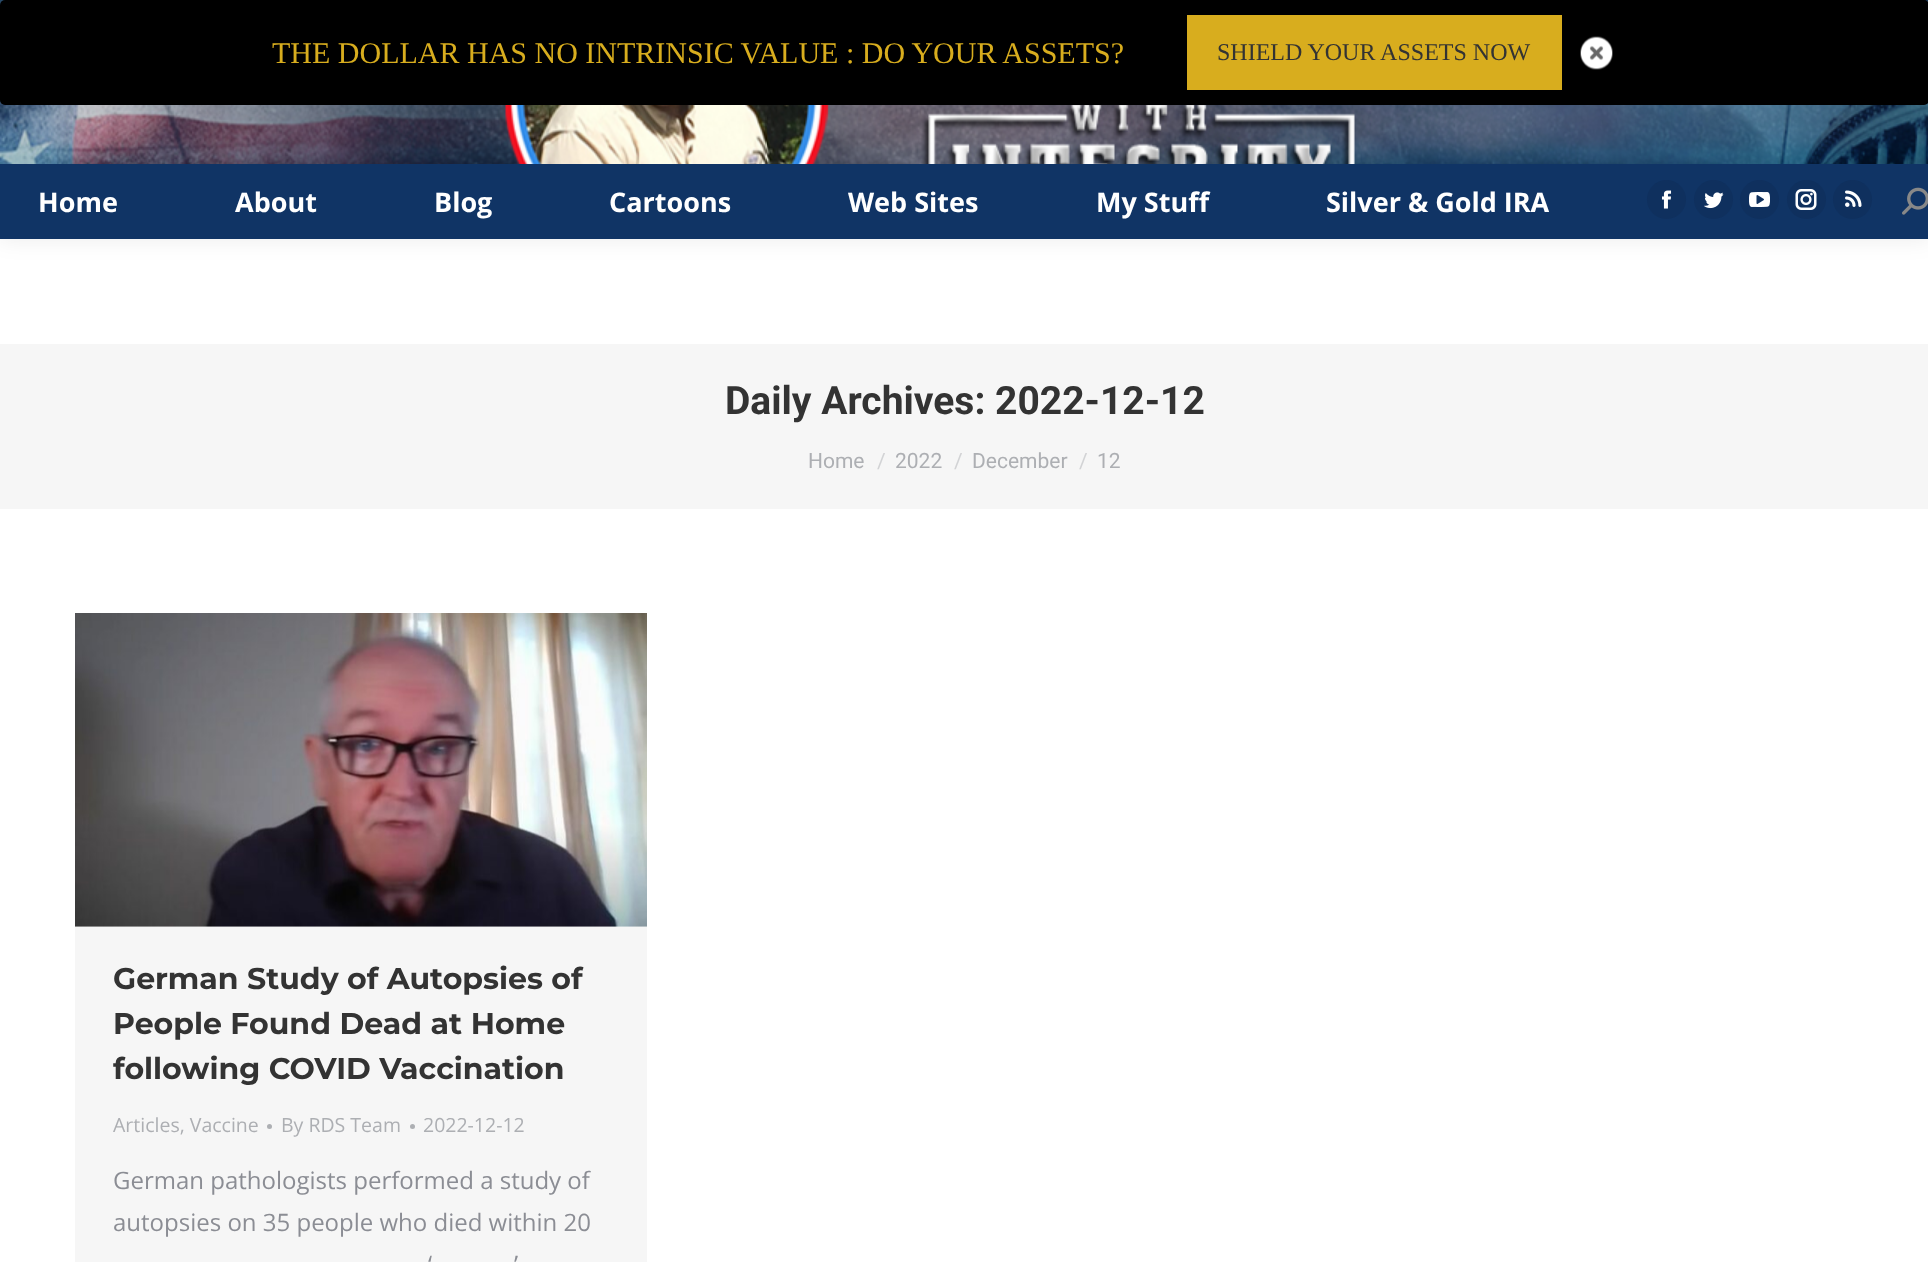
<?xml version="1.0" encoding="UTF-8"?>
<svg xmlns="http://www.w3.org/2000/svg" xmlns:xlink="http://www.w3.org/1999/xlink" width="1928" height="1262">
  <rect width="100%" height="100%" fill="#ffffff" />
  <rect x="-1" y="-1" width="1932" height="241" fill="#000000" fill-opacity="0.07" filter="blur(11px)" />
  <image x="0" y="0" width="1928" height="164" xlink:href="image2.png" />
  <rect width="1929" height="105" rx="5" fill="#000000" />
  <rect x="1187" y="15" width="375" height="75" fill="#d8ad1e" />
  <image x="1580" y="36" width="33" height="34" xlink:href="image1.png" />
  <rect y="164" width="1928" height="75" fill="#103465" />
  <circle cx="1666.5" cy="199.5" r="19.5" fill="#0f305e" />
  <image x="1661" y="190" width="11" height="19" xlink:href="image3.png" />
  <circle cx="1713.5" cy="199.5" r="19.5" fill="#0f305e" />
  <image x="1704" y="192" width="20" height="17" xlink:href="image4.png" />
  <circle cx="1759.5" cy="199.5" r="19.5" fill="#0f305e" />
  <image x="1749" y="192" width="21" height="15" xlink:href="image5.png" />
  <circle cx="1806.5" cy="199.5" r="19.5" fill="#0f305e" />
  <image x="1795" y="189" width="22" height="21" xlink:href="image6.png" />
  <circle cx="1852.5" cy="199.5" r="19.5" fill="#0f305e" />
  <image x="1845" y="190" width="17" height="17" xlink:href="image7.png" />
  <image x="1902" y="187" width="26" height="28" xlink:href="image8.png" />
  <rect y="344" width="1928" height="165" fill="#f6f6f6" />
  <rect x="75" y="926" width="572" height="336" fill="#f6f6f6" />
  <image x="75" y="613" width="572" height="314" xlink:href="image9.png" />
  <circle cx="269.5" cy="1126.5" r="2.5" fill="#adafb3" />
  <circle cx="412.5" cy="1126.5" r="2.5" fill="#adafb3" />
  <text x="272" y="63" style="font-family: Liberation Serif; font-size: 30px; fill: #d8ad1e">THE DOLLAR HAS NO INTRINSIC VALUE : DO YOUR ASSETS?</text>
  <text x="1217" y="60" style="font-family: Liberation Serif; font-size: 24px; fill: #333333">SHIELD YOUR ASSETS NOW</text>
  <text x="38" y="212" style="font-family: Open Sans; font-size: 27px; font-weight: bold; fill: #ffffff">Home</text>
  <text x="235" y="212" style="font-family: Open Sans; font-size: 27px; font-weight: bold; fill: #ffffff">About</text>
  <text x="434" y="212" style="font-family: Open Sans; font-size: 27px; font-weight: bold; fill: #ffffff">Blog</text>
  <text x="609" y="212" style="font-family: Open Sans; font-size: 27px; font-weight: bold; fill: #ffffff">Cartoons</text>
  <text x="848" y="212" style="font-family: Open Sans; font-size: 27px; font-weight: bold; fill: #ffffff">Web Sites</text>
  <text x="1096" y="212" style="font-family: Open Sans; font-size: 27px; font-weight: bold; fill: #ffffff">My Stuff</text>
  <text x="1326" y="212" style="font-family: Open Sans; font-size: 27px; font-weight: bold; fill: #ffffff">Silver &amp; Gold IRA</text>
  <text x="725" y="414" style="font-family: Roboto; font-size: 39px; font-weight: bold; fill: #333333">Daily Archives: 2022-12-12</text>
  <text x="808" y="468" style="font-family: Roboto; font-size: 21px; fill: #adafb3">Home</text>
  <text x="877" y="468" style="font-family: Roboto; font-size: 21px; fill: #d2d3d5">/</text>
  <text x="895" y="468" style="font-family: Roboto; font-size: 21px; fill: #adafb3">2022</text>
  <text x="954" y="468" style="font-family: Roboto; font-size: 21px; fill: #d2d3d5">/</text>
  <text x="972" y="468" style="font-family: Roboto; font-size: 21px; fill: #adafb3">December</text>
  <text x="1079" y="468" style="font-family: Roboto; font-size: 21px; fill: #d2d3d5">/</text>
  <text x="1097" y="468" style="font-family: Roboto; font-size: 21px; fill: #adafb3">12</text>
  <text x="113" y="989" style="font-family: Montserrat; font-size: 30px; font-weight: bold; fill: #333333">German Study of Autopsies of</text>
  <text x="113" y="1034" style="font-family: Montserrat; font-size: 30px; font-weight: bold; fill: #333333">People Found Dead at Home</text>
  <text x="113" y="1079" style="font-family: Montserrat; font-size: 30px; font-weight: bold; fill: #333333">following COVID Vaccination</text>
  <text x="113" y="1132" style="font-family: Open Sans; font-size: 19.5px; fill: #adafb3">Articles, Vaccine</text>
  <text x="281" y="1132" style="font-family: Open Sans; font-size: 19.5px; fill: #adafb3">By RDS Team</text>
  <text x="423" y="1132" style="font-family: Open Sans; font-size: 19.5px; fill: #adafb3">2022-12-12</text>
  <text x="113" y="1189" style="font-family: Open Sans; font-size: 24px; fill: #8b8d94">German pathologists performed a study of</text>
  <text x="113" y="1231" style="font-family: Open Sans; font-size: 24px; fill: #8b8d94">autopsies on 35 people who died within 20</text>
  <text x="428" y="1273" style="font-family: Open Sans; font-size: 24px; fill: #8b8d94">‘</text>
  <text x="514" y="1273" style="font-family: Open Sans; font-size: 24px; fill: #8b8d94">’</text>
</svg>
